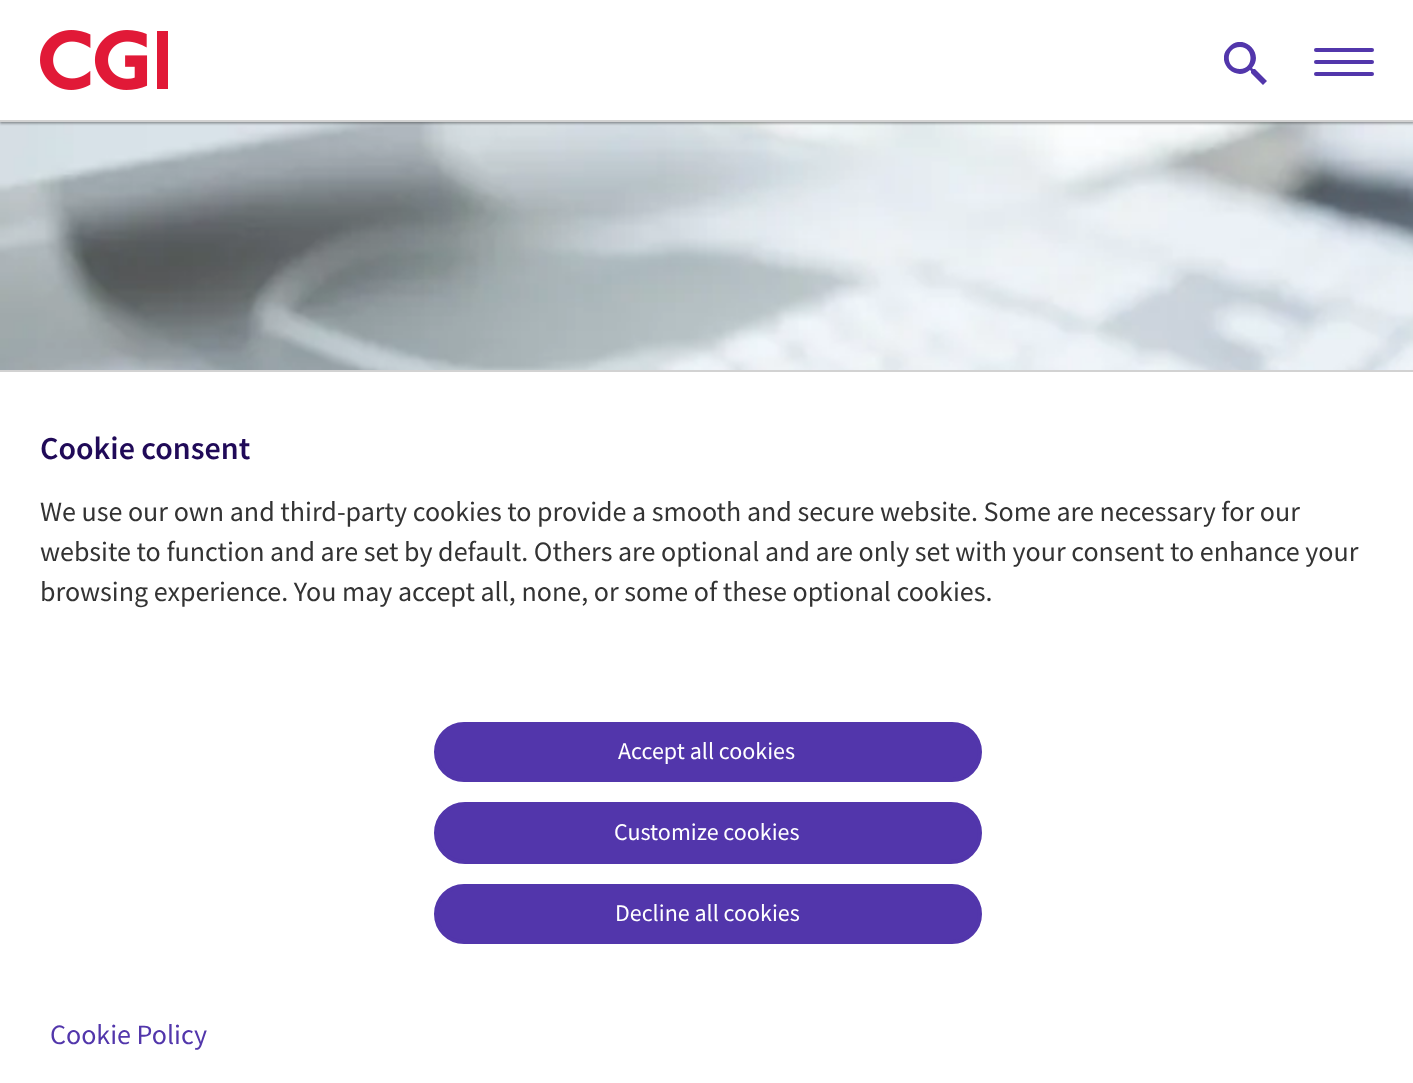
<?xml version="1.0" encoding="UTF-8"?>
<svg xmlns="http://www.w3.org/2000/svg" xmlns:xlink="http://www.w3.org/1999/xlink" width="1413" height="1083">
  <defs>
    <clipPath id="clip1"><rect x="1224" y="42" width="44" height="44" /></clipPath>
  </defs>
  <rect width="100%" height="100%" fill="#ffffff" />
  <image x="0" y="122" width="1413" height="248" xlink:href="image2.png" />
  <rect y="4" width="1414" height="118" fill="#000000" fill-opacity="0.25" filter="blur(1px)" />
  <rect y="2" width="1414" height="122" fill="#000000" fill-opacity="0.25" filter="blur(1px)" />
  <rect width="1413" height="120" fill="#ffffff" />
  <rect y="120" width="1413" height="2" fill="#d2d2d2" />
  <image x="40" y="30" width="128" height="60" xlink:href="image1.png" />
  <g clip-path="url(#clip1)">
    <path d="M 1255 69 h -2 l -1 -1 c 13 -15 -9 -36 -23 -21 c -15 14 6 36 21 23 l 1 1 v 2 l 12 12 l 4 -4 z m -15 0 c -15 0 -15 -22 0 -22 c 14 0 14 22 0 22 z" fill="#5236ab" />
  </g>
  <rect x="1314" y="72" width="60" height="4" rx="2" fill="#5236ab" />
  <rect x="1314" y="48" width="60" height="4" rx="2" fill="#5236ab" />
  <rect x="1314" y="60" width="60" height="4" rx="2" fill="#5236ab" />
  <rect y="370" width="1413" height="2" fill="#d2d2d2" />
  <rect x="436" y="724" width="544" height="56" rx="28" fill="#5236ab" stroke="#5236ab" stroke-width="4" />
  <rect x="436" y="804" width="544" height="58" rx="29" fill="#5236ab" stroke="#5236ab" stroke-width="4" />
  <rect x="436" y="886" width="544" height="56" rx="28" fill="#5236ab" stroke="#5236ab" stroke-width="4" />
  <text x="40" y="459" style="font-family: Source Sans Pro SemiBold; font-size: 32px; font-weight: 600; fill: #200a58">Cookie consent</text>
  <text x="40" y="521" style="font-family: Source Sans Pro; font-size: 28px; fill: #333333">We use our own and third-party cookies to provide a smooth and secure website. Some are necessary for our</text>
  <text x="40" y="561" style="font-family: Source Sans Pro; font-size: 28px; fill: #333333">website to function and are set by default. Others are optional and are only set with your consent to enhance your</text>
  <text x="40" y="601" style="font-family: Source Sans Pro; font-size: 28px; fill: #333333">browsing experience. You may accept all, none, or some of these optional cookies.</text>
  <text x="618" y="759" style="font-family: Source Sans Pro; font-size: 24px; fill: #ffffff">Accept all cookies</text>
  <text x="614" y="840" style="font-family: Source Sans Pro; font-size: 24px; fill: #ffffff">Customize cookies</text>
  <text x="615" y="921" style="font-family: Source Sans Pro; font-size: 24px; fill: #ffffff">Decline all cookies</text>
  <text x="50" y="1044" style="font-family: Source Sans Pro; font-size: 28px; fill: #5236ab">Cookie Policy</text>
</svg>
